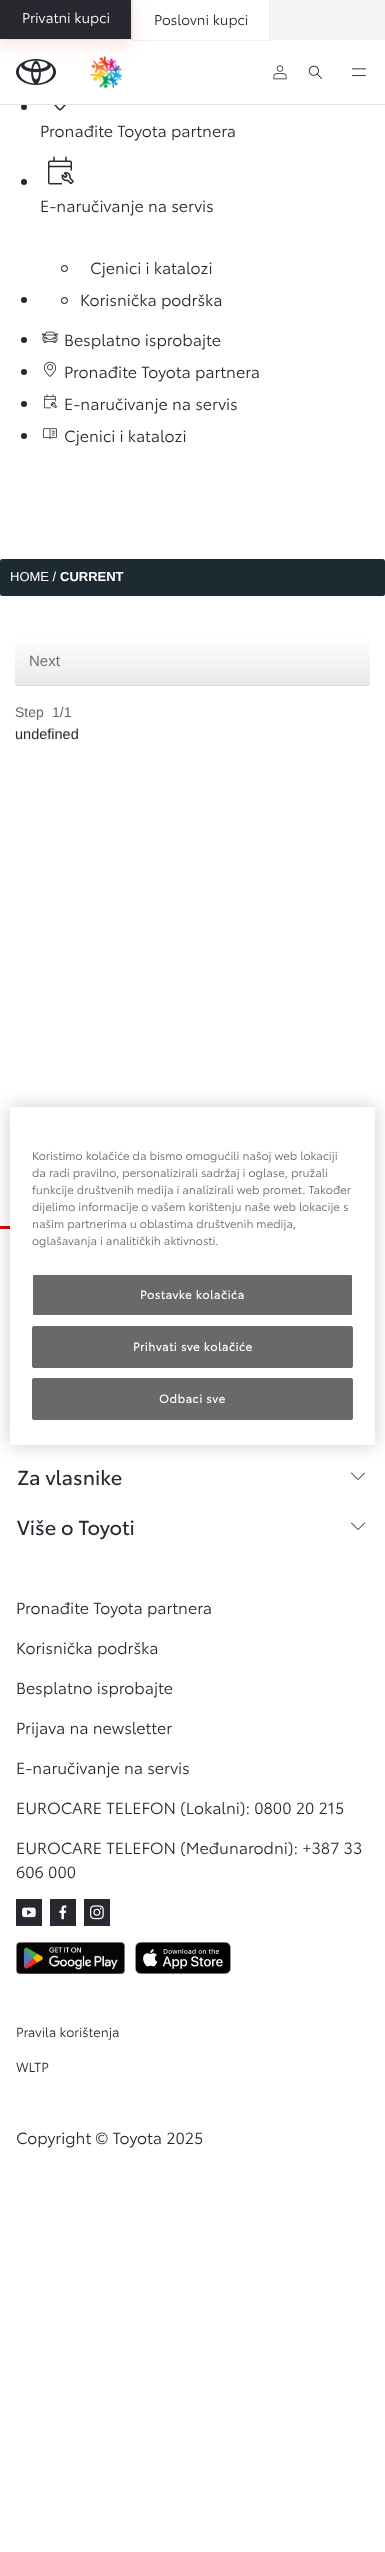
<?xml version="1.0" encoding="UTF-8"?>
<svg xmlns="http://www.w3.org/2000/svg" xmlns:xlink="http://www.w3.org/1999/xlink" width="385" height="2552">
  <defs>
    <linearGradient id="g1" gradientUnits="userSpaceOnUse" x1="193" y1="635" x2="193" y2="685"><stop offset="0" stop-color="#ffffff" /><stop offset="1" stop-color="#e8e9ea" /></linearGradient>
  </defs>
  <rect width="100%" height="100%" fill="#ffffff" />
  <rect width="385" height="40" fill="#f5f5f5" />
  <rect x="132.5" y="-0.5" width="137" height="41" fill="#ffffff" stroke="#efefef" />
  <image x="16" y="59" width="40" height="26" xlink:href="image1.png" />
  <image x="89" y="56" width="34" height="32" xlink:href="image2.png" />
  <rect y="3" width="131" height="42" fill="#e11000" fill-opacity="0.12" filter="blur(8px)" />
  <rect x="0.5" y="-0.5" width="130" height="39" fill="#282830" stroke="#26262d" />
  <image x="273" y="65" width="14" height="15" xlink:href="image3.png" />
  <image x="308" y="65" width="14" height="14" xlink:href="image4.png" />
  <image x="352" y="68" width="14" height="9" xlink:href="image5.png" />
  <circle cx="24" cy="107" r="3" fill="#282830" />
  <rect y="104" width="385" height="1" fill="#e4e4e4" />
  <image x="54" y="105" width="12" height="6" xlink:href="image6.png" />
  <circle cx="24" cy="182" r="3" fill="#282830" />
  <image x="48" y="156" width="26" height="29" xlink:href="image7.png" />
  <circle cx="24" cy="300" r="3" fill="#282830" />
  <circle cx="64.5" cy="268.5" r="3" fill="none" stroke="#000000" />
  <circle cx="64.5" cy="300.5" r="3" fill="none" stroke="#000000" />
  <circle cx="24" cy="340" r="3" fill="#282830" />
  <image x="42" y="331" width="16" height="12" xlink:href="image8.png" />
  <circle cx="24" cy="372" r="3" fill="#282830" />
  <image x="44" y="361" width="12" height="16" xlink:href="image9.png" />
  <circle cx="24" cy="404" r="3" fill="#282830" />
  <image x="44" y="394" width="13" height="15" xlink:href="image10.png" />
  <circle cx="24" cy="436" r="3" fill="#282830" />
  <image x="43" y="428" width="14" height="11" xlink:href="image11.png" />
  <rect y="559" width="385" height="37" rx="2.5" fill="#1e2a32" />
  <rect x="15" y="636" width="355" height="50" rx="3" fill="#000000" fill-opacity="0.15" filter="blur(0.5px)" />
  <rect x="15" y="635" width="355" height="50" rx="3" fill="url(#g1)" />
  <rect y="1226" width="10" height="3" fill="#d40605" />
  <image x="351" y="1472" width="14" height="8" xlink:href="image12.png" />
  <rect x="10" y="1107" width="365" height="338" rx="2.5" fill="#000000" fill-opacity="0.2" filter="blur(9px)" />
  <rect x="10" y="1107" width="365" height="338" rx="2.5" fill="#ffffff" />
  <rect x="32.5" y="1274.5" width="320" height="41" rx="1.5" fill="#696969" stroke="#ffffff" />
  <rect x="32.5" y="1326.5" width="320" height="41" rx="1.5" fill="#696969" stroke="#696969" />
  <rect x="32.5" y="1378.5" width="320" height="41" rx="1.5" fill="#696969" stroke="#696969" />
  <image x="351" y="1522" width="14" height="8" xlink:href="image12.png" />
  <rect x="16" y="1899" width="26" height="27" fill="#282830" />
  <image x="22" y="1907" width="14" height="11" xlink:href="image13.png" />
  <rect x="50" y="1899" width="26" height="27" fill="#282830" />
  <image x="59" y="1905" width="8" height="15" xlink:href="image14.png" />
  <rect x="84" y="1899" width="26" height="27" fill="#282830" />
  <image x="89" y="1905" width="15" height="15" xlink:href="image15.png" />
  <image x="16" y="1942" width="109" height="32" xlink:href="image16.png" />
  <image x="135" y="1942" width="96" height="32" xlink:href="image17.png" />
  <text x="22" y="23" style="font-family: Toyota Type; font-size: 14px; fill: #ffffff">Privatni kupci</text>
  <text x="154" y="25" style="font-family: Toyota Type; font-size: 14px; fill: #282830">Poslovni kupci</text>
  <text x="40" y="137" style="font-family: Toyota Type; font-size: 16px; fill: #282830">Pronađite Toyota partnera</text>
  <text x="40" y="212" style="font-family: Toyota Type; font-size: 16px; fill: #282830">E-naručivanje na servis</text>
  <text x="90" y="274" style="font-family: Toyota Type; font-size: 16px; fill: #282830">Cjenici i katalozi</text>
  <text x="80" y="306" style="font-family: Toyota Type; font-size: 16px; fill: #282830">Korisnička podrška</text>
  <text x="64" y="346" style="font-family: Toyota Type; font-size: 16px; fill: #282830">Besplatno isprobajte</text>
  <text x="64" y="378" style="font-family: Toyota Type; font-size: 16px; fill: #282830">Pronađite Toyota partnera</text>
  <text x="64" y="410" style="font-family: Toyota Type; font-size: 16px; fill: #282830">E-naručivanje na servis</text>
  <text x="64" y="442" style="font-family: Toyota Type; font-size: 16px; fill: #282830">Cjenici i katalozi</text>
  <text x="10" y="581" style="font-family: Liberation Sans; font-size: 13px; fill: #ffffff">HOME /</text>
  <text x="60" y="581" style="font-family: Liberation Sans; font-size: 13px; font-weight: bold; fill: #ffffff">CURRENT</text>
  <text x="29" y="666" style="font-family: Liberation Sans; font-size: 15px; fill: #6c7073">Next</text>
  <text x="15" y="717" style="font-family: Liberation Sans; font-size: 14px; fill: #666666">Step</text>
  <text x="52" y="717" style="font-family: Liberation Sans; font-size: 14px; fill: #666666">1/1</text>
  <text x="15" y="739" style="font-family: Liberation Sans; font-size: 14.5px; fill: #282830">undefined</text>
  <text x="32" y="1160" style="font-family: Toyota Type; font-size: 11.4px; fill: #666666">Koristimo kolačiće da bismo omogućili našoj web lokaciji</text>
  <text x="32" y="1177" style="font-family: Toyota Type; font-size: 11.4px; fill: #666666">da radi pravilno, personalizirali sadržaj i oglase, pružali</text>
  <text x="32" y="1194" style="font-family: Toyota Type; font-size: 11.4px; fill: #666666">funkcije društvenih medija i analizirali web promet. Također</text>
  <text x="32" y="1211" style="font-family: Toyota Type; font-size: 11.4px; fill: #666666">dijelimo informacije o vašem korištenju naše web lokacije s</text>
  <text x="32" y="1228" style="font-family: Toyota Type; font-size: 11.4px; fill: #666666">našim partnerima u oblastima društvenih medija,</text>
  <text x="32" y="1245" style="font-family: Toyota Type; font-size: 11.4px; fill: #666666">oglašavanja i analitičkih aktivnosti.</text>
  <text x="140" y="1299" style="font-family: Toyota Type; font-size: 11.4px; font-weight: bold; letter-spacing: 0.6px; fill: #ffffff">Postavke kolačića</text>
  <text x="133" y="1351" style="font-family: Toyota Type; font-size: 11.4px; font-weight: bold; letter-spacing: 0.6px; fill: #ffffff">Prihvati sve kolačiće</text>
  <text x="159" y="1403" style="font-family: Toyota Type; font-size: 11.4px; font-weight: bold; letter-spacing: 0.6px; fill: #ffffff">Odbaci sve</text>
  <text x="17" y="1485" style="font-family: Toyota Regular; font-size: 20px; fill: #282830">Za vlasnike</text>
  <text x="17" y="1535" style="font-family: Toyota Regular; font-size: 20px; fill: #282830">Više o Toyoti</text>
  <text x="16" y="1614" style="font-family: Toyota Type; font-size: 16px; fill: #282830">Pronađite Toyota partnera</text>
  <text x="16" y="1654" style="font-family: Toyota Type; font-size: 16px; fill: #282830">Korisnička podrška</text>
  <text x="16" y="1694" style="font-family: Toyota Type; font-size: 16px; fill: #282830">Besplatno isprobajte</text>
  <text x="16" y="1734" style="font-family: Toyota Type; font-size: 16px; fill: #282830">Prijava na newsletter</text>
  <text x="16" y="1774" style="font-family: Toyota Type; font-size: 16px; fill: #282830">E-naručivanje na servis</text>
  <text x="16" y="1814" style="font-family: Toyota Type; font-size: 16px; fill: #282830">EUROCARE TELEFON (Lokalni): 0800 20 215</text>
  <text x="16" y="1854" style="font-family: Toyota Type; font-size: 16px; fill: #282830">EUROCARE TELEFON (Međunarodni): +387 33</text>
  <text x="16" y="1878" style="font-family: Toyota Type; font-size: 16px; fill: #282830">606 000</text>
  <text x="16" y="2037" style="font-family: Toyota Type; font-size: 13px; fill: #282830">Pravila korištenja</text>
  <text x="16" y="2072" style="font-family: Toyota Type; font-size: 13px; fill: #282830">WLTP</text>
  <text x="16" y="2144" style="font-family: Toyota Type; font-size: 16px; fill: #282830">Copyright © Toyota 2025</text>
</svg>
